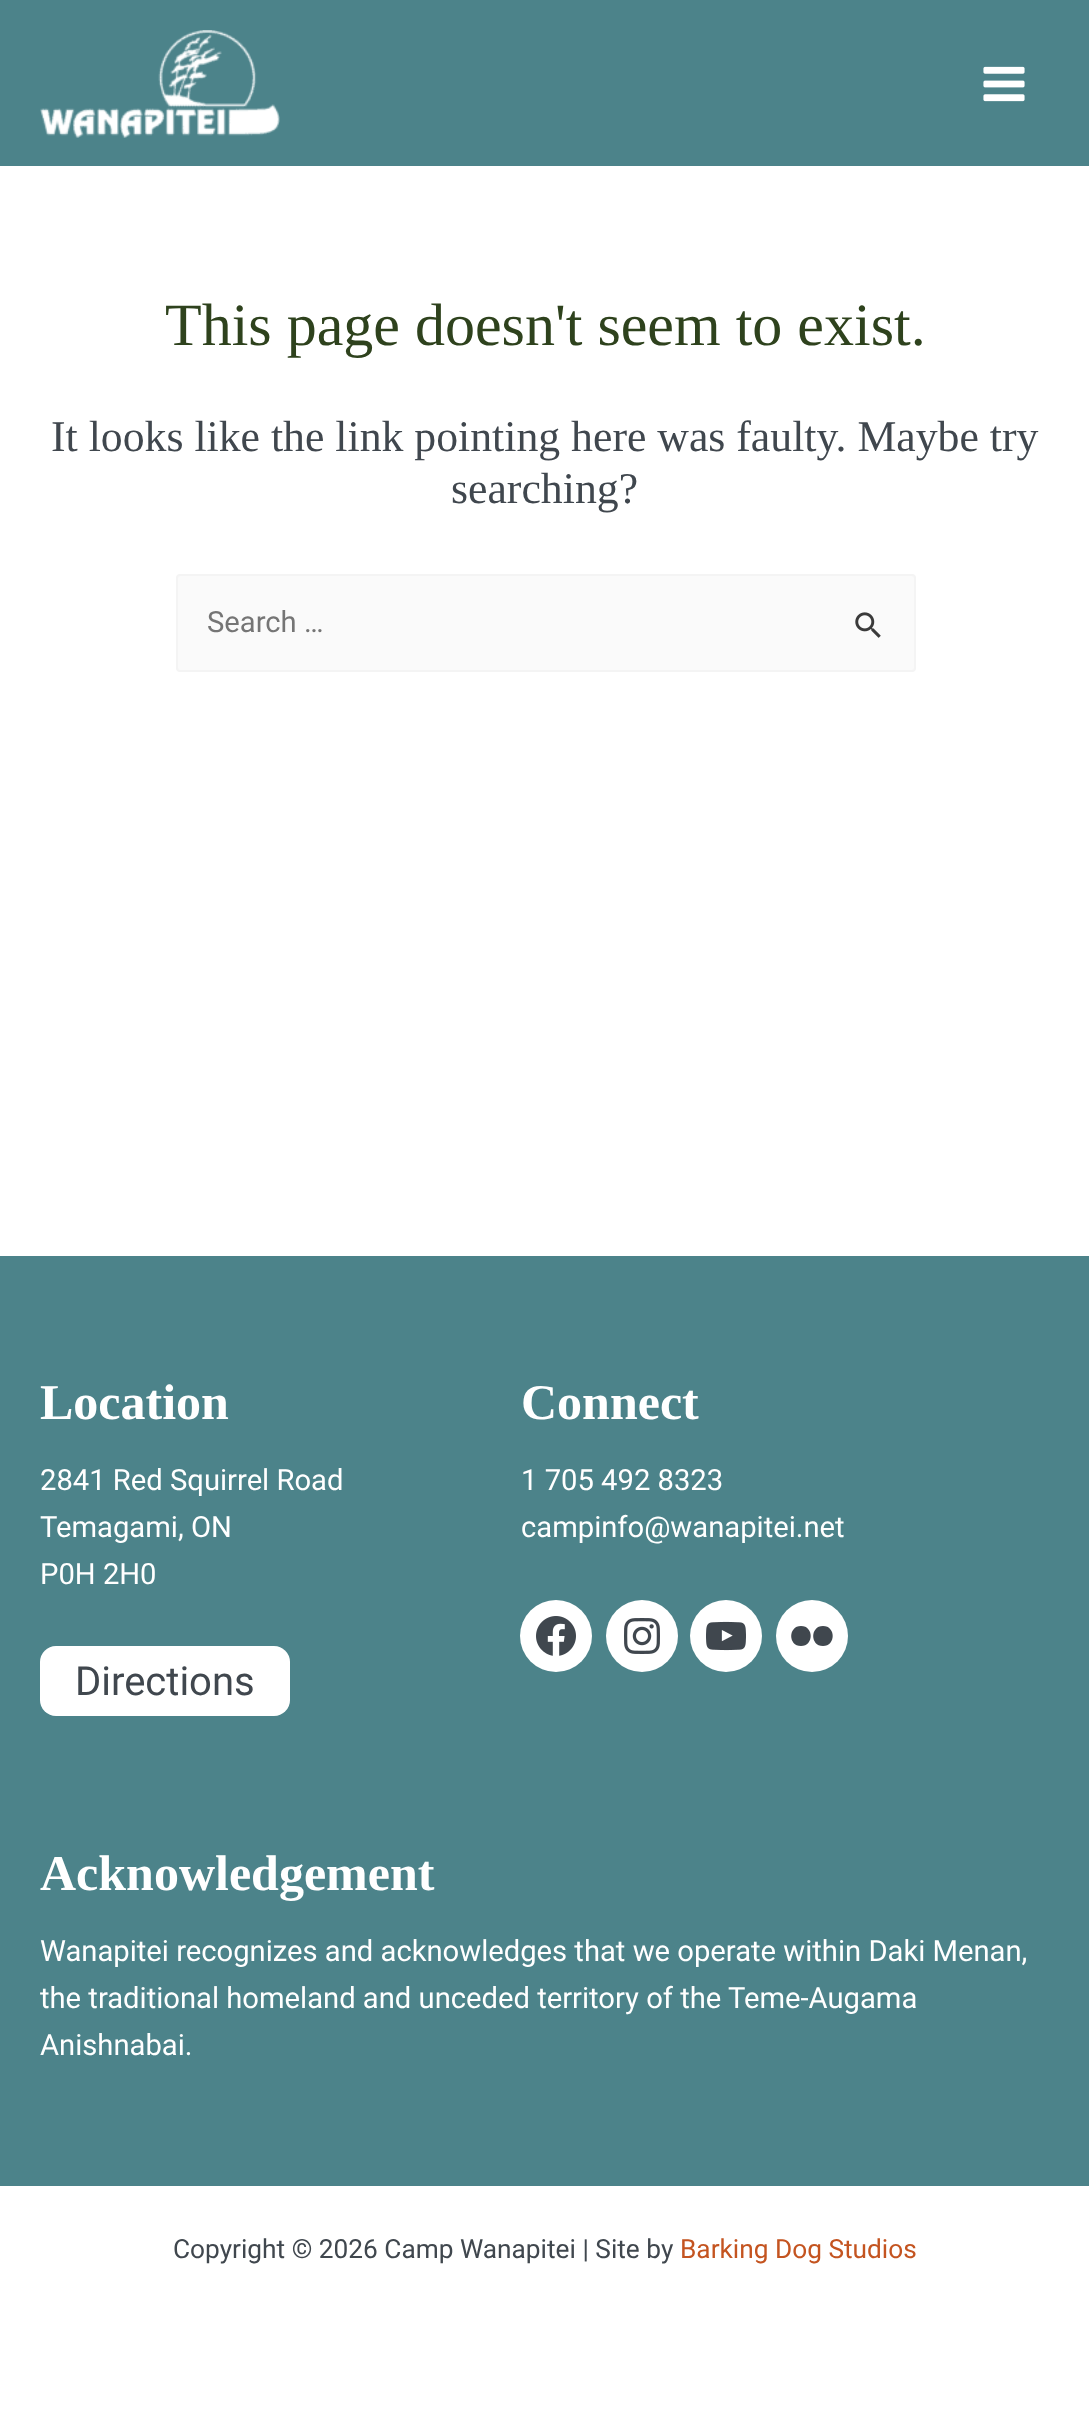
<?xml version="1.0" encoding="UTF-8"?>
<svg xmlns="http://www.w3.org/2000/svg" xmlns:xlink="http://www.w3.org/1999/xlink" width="1089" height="2426">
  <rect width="100%" height="100%" fill="#ffffff" />
  <rect width="1089" height="166" fill="#4c838a" />
  <image x="40" y="30" width="240" height="108" xlink:href="image1.png" />
  <image x="983" y="66" width="42" height="36" xlink:href="image2.png" />
  <rect x="177" y="575" width="738" height="96" rx="3" fill="#fafafa" stroke="#f4f4f4" stroke-width="2" />
  <image x="855" y="612" width="26" height="26" xlink:href="image3.png" />
  <rect y="1256" width="1089" height="930" fill="#4c838a" />
  <rect x="40" y="1646" width="250" height="70" rx="16" fill="#ffffff" />
  <circle cx="556" cy="1636" r="36" fill="#ffffff" />
  <image x="536" y="1616" width="40" height="40" xlink:href="image4.png" />
  <circle cx="642" cy="1636" r="36" fill="#ffffff" />
  <image x="624" y="1618" width="36" height="36" xlink:href="image5.png" />
  <circle cx="726" cy="1636" r="36" fill="#ffffff" />
  <image x="706" y="1621" width="40" height="30" xlink:href="image6.png" />
  <circle cx="812" cy="1636" r="36" fill="#ffffff" />
  <path d="M 801 1626 c -13 0 -13 20 0 20 c 13 0 13 -20 0 -20 z m 22 0 c -13 0 -13 20 0 20 c 13 0 13 -20 0 -20 z" fill="#40474e" />
  <text x="165" y="345" style="font-family: Liberation Serif; font-size: 60px; fill: #2e421d">This page doesn't seem to exist.</text>
  <text x="51" y="451" style="font-family: Liberation Serif; font-size: 43.75px; fill: #40474e">It looks like the link pointing here was faulty. Maybe try</text>
  <text x="451" y="503" style="font-family: Liberation Serif; font-size: 43.75px; fill: #40474e">searching?</text>
  <text x="207" y="632" style="font-family: Roboto; font-size: 29.2px; fill: #757575">Search …</text>
  <text x="40" y="1419" style="font-family: Liberation Serif; font-size: 50px; font-weight: bold; fill: #ffffff">Location</text>
  <text x="40" y="1490" style="font-family: Roboto; font-size: 29.2px; fill: #ffffff">2841 Red Squirrel Road</text>
  <text x="40" y="1537" style="font-family: Roboto; font-size: 29.2px; fill: #ffffff">Temagami, ON</text>
  <text x="40" y="1584" style="font-family: Roboto; font-size: 29.2px; fill: #ffffff">P0H 2H0</text>
  <text x="75" y="1695" style="font-family: Roboto; font-size: 40px; fill: #40474e">Directions</text>
  <text x="521" y="1419" style="font-family: Liberation Serif; font-size: 50px; font-weight: bold; fill: #ffffff">Connect</text>
  <text x="521" y="1490" style="font-family: Roboto; font-size: 29.2px; fill: #ffffff">1 705 492 8323</text>
  <text x="521" y="1537" style="font-family: Roboto; font-size: 29.2px; fill: #ffffff">campinfo@wanapitei.net</text>
  <text x="40" y="1890" style="font-family: Liberation Serif; font-size: 50px; font-weight: bold; fill: #ffffff">Acknowledgement</text>
  <text x="40" y="1961" style="font-family: Roboto; font-size: 29.2px; fill: #ffffff">Wanapitei recognizes and acknowledges that we operate within Daki Menan,</text>
  <text x="40" y="2008" style="font-family: Roboto; font-size: 29.2px; fill: #ffffff">the traditional homeland and unceded territory of the Teme-Augama</text>
  <text x="40" y="2055" style="font-family: Roboto; font-size: 29.2px; fill: #ffffff">Anishnabai.</text>
  <text x="173" y="2258" style="font-family: Roboto; font-size: 26.25px; fill: #40474e">Copyright © 2026 Camp Wanapitei | Site by</text>
  <text x="680" y="2258" style="font-family: Roboto; font-size: 26.25px; fill: #c45420">Barking Dog Studios</text>
</svg>
